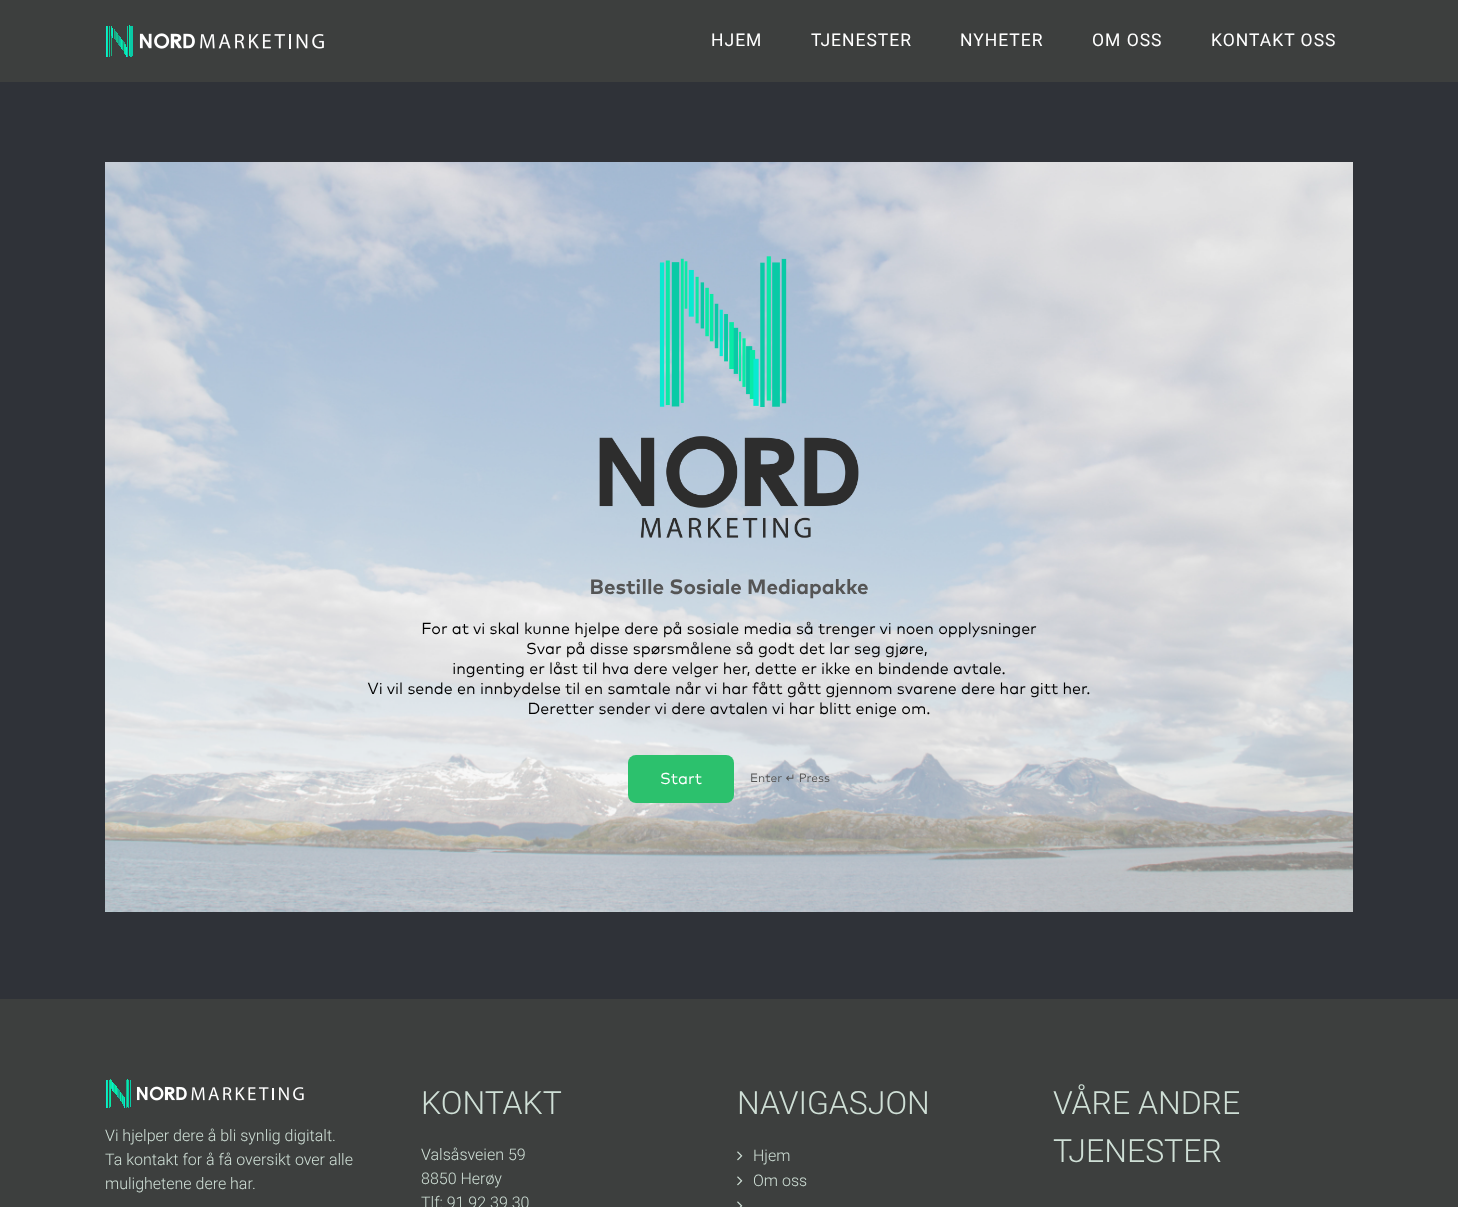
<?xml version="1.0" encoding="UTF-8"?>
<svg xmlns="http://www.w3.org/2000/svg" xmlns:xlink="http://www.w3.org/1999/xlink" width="1458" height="1207">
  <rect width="100%" height="100%" fill="#2f3238" />
  <rect width="1458" height="82" fill="#3d3f3e" />
  <image x="106" y="25" width="218" height="32" xlink:href="image1.png" />
  <image x="105" y="162" width="1248" height="750" xlink:href="image2.png" />
  <rect y="999" width="1458" height="208" fill="#3d3f3e" />
  <image x="106" y="1079" width="198" height="29" xlink:href="image3.png" />
  <image x="737" y="1151" width="6" height="10" xlink:href="image4.png" />
  <image x="737" y="1176" width="6" height="10" xlink:href="image4.png" />
  <image x="737" y="1201" width="6" height="6" xlink:href="image5.png" />
  <text x="711" y="46" style="font-family: Roboto; font-size: 17.5px; letter-spacing: 1px; fill: #ffffff">HJEM</text>
  <text x="811" y="46" style="font-family: Roboto; font-size: 17.5px; letter-spacing: 1px; fill: #ffffff">TJENESTER</text>
  <text x="960" y="46" style="font-family: Roboto; font-size: 17.5px; letter-spacing: 1px; fill: #ffffff">NYHETER</text>
  <text x="1092" y="46" style="font-family: Roboto; font-size: 17.5px; letter-spacing: 1px; fill: #ffffff">OM OSS</text>
  <text x="1211" y="46" style="font-family: Roboto; font-size: 17.5px; letter-spacing: 1px; fill: #ffffff">KONTAKT OSS</text>
  <text x="105" y="1141" style="font-family: Roboto; font-size: 16px; font-weight: 300; fill: #cfdfd6">Vi hjelper dere å bli synlig digitalt.</text>
  <text x="105" y="1165" style="font-family: Roboto; font-size: 16px; font-weight: 300; fill: #cfdfd6">Ta kontakt for å få oversikt over alle</text>
  <text x="105" y="1189" style="font-family: Roboto; font-size: 16px; font-weight: 300; fill: #cfdfd6">mulighetene dere har.</text>
  <text x="421" y="1114" style="font-family: Roboto; font-size: 32px; font-weight: 300; fill: #cfdfd6">KONTAKT</text>
  <text x="421" y="1160" style="font-family: Roboto; font-size: 16px; font-weight: 300; fill: #cfdfd6">Valsåsveien 59</text>
  <text x="421" y="1184" style="font-family: Roboto; font-size: 16px; font-weight: 300; fill: #cfdfd6">8850 Herøy</text>
  <text x="421" y="1208" style="font-family: Roboto; font-size: 16px; font-weight: 300; fill: #cfdfd6">Tlf: 91 92 39 30</text>
  <text x="737" y="1114" style="font-family: Roboto; font-size: 32px; font-weight: 300; fill: #cfdfd6">NAVIGASJON</text>
  <text x="753" y="1161" style="font-family: Roboto; font-size: 16px; font-weight: 300; fill: #cfdfd6">Hjem</text>
  <text x="753" y="1186" style="font-family: Roboto; font-size: 16px; font-weight: 300; fill: #cfdfd6">Om oss</text>
  <text x="1053" y="1114" style="font-family: Roboto; font-size: 32px; font-weight: 300; fill: #cfdfd6">VÅRE ANDRE</text>
  <text x="1053" y="1162" style="font-family: Roboto; font-size: 32px; font-weight: 300; fill: #cfdfd6">TJENESTER</text>
</svg>
